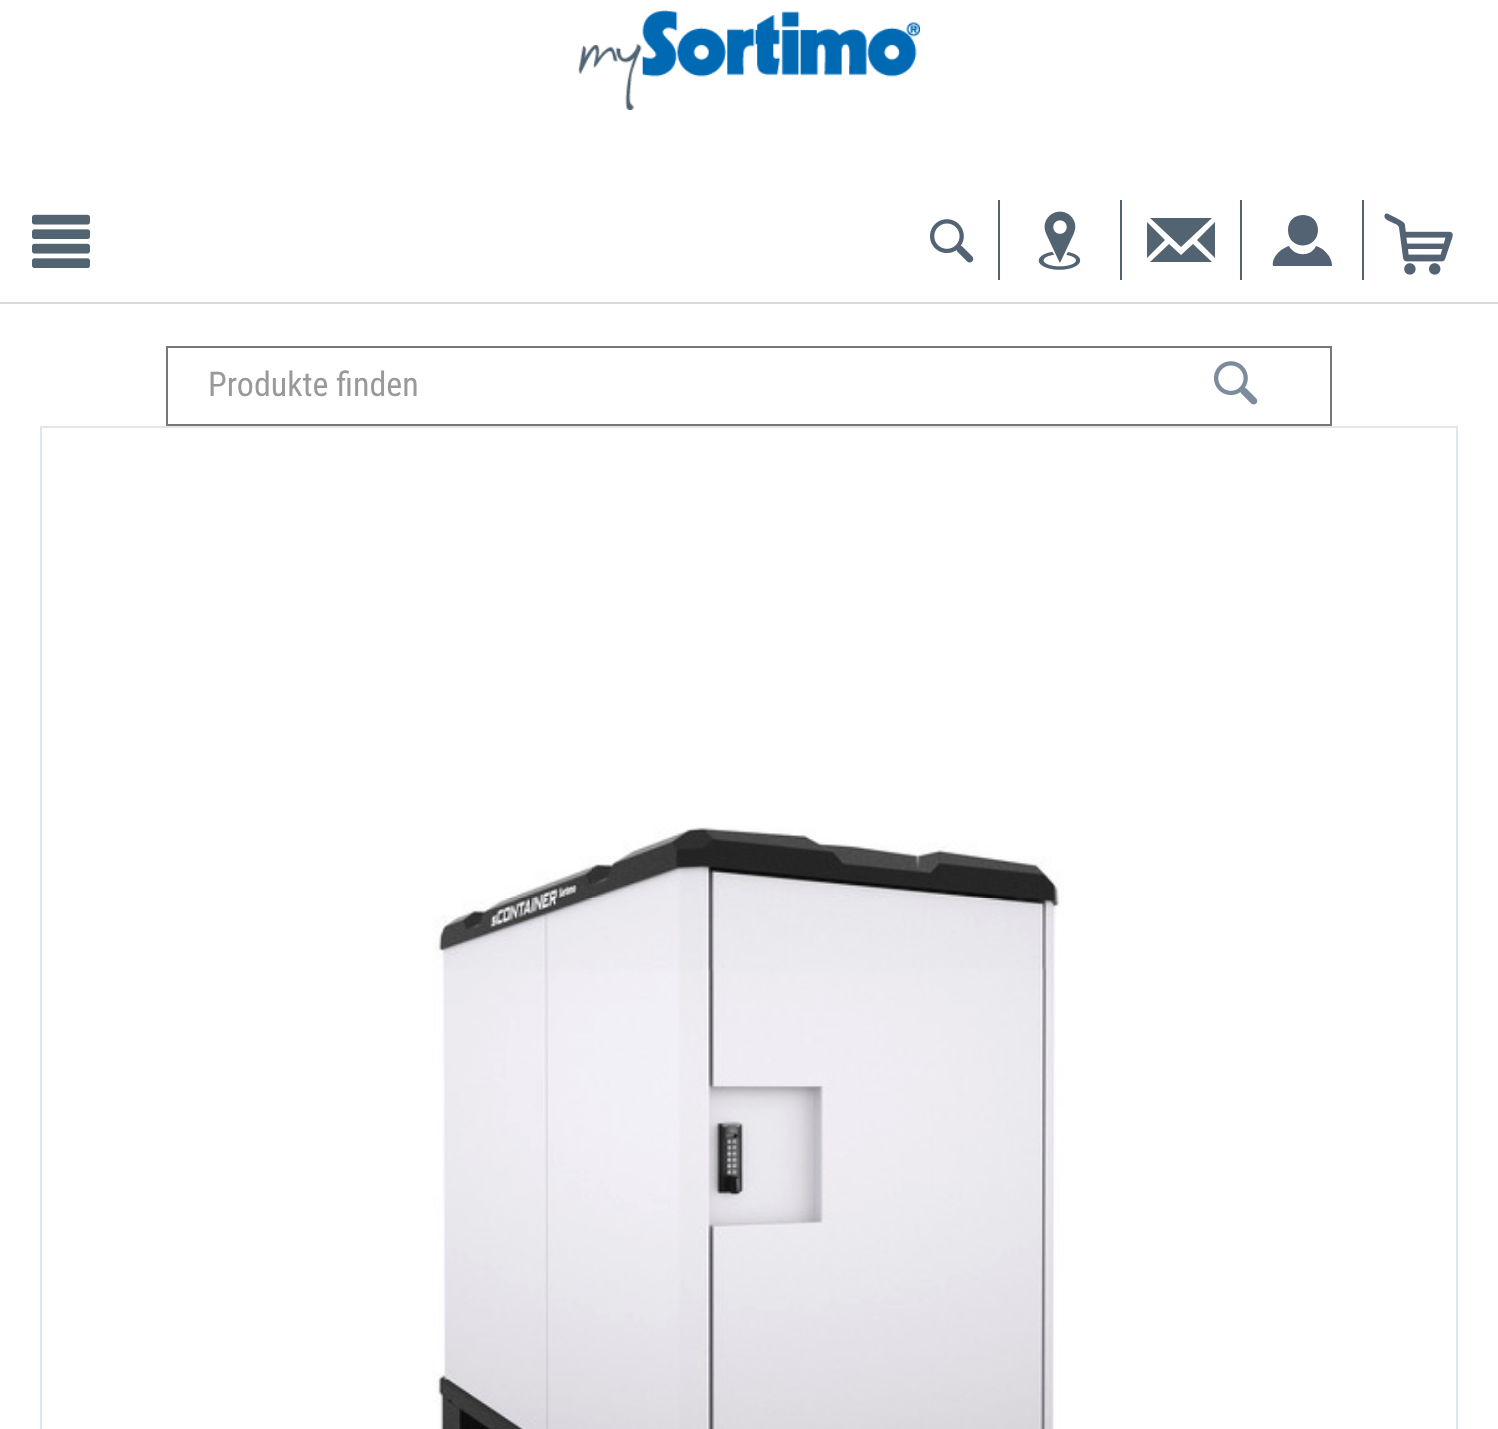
<?xml version="1.0" encoding="UTF-8"?>
<svg xmlns="http://www.w3.org/2000/svg" xmlns:xlink="http://www.w3.org/1999/xlink" width="1498" height="1429">
  <rect width="100%" height="100%" fill="#ffffff" />
  <image x="578" y="10" width="342" height="100" xlink:href="image1.png" />
  <rect y="302" width="1498" height="2" fill="#d9d9d9" />
  <image x="32" y="214" width="58" height="54" xlink:href="image2.png" />
  <image x="930" y="219" width="44" height="44" xlink:href="image3.png" />
  <rect x="998" y="200" width="2" height="80" fill="#546373" />
  <image x="1038" y="211" width="43" height="59" xlink:href="image4.png" />
  <rect x="1120" y="200" width="2" height="80" fill="#546373" />
  <path d="M 1147 222 l 18 18 l -18 18 z m 68 36 l -18 -18 l 18 -18 z m -3 -40 l -31 29 l -31 -29 z m -62 44 l 19 -18 l 12 11 l 12 -11 l 19 18 z" fill="#526372" fill-rule="evenodd" />
  <rect x="1240" y="200" width="2" height="80" fill="#546373" />
  <path d="M 1318 230 c 0 20 -30 21 -30 0 c 0 -20 30 -20 30 0 z m 14 35 c 0 -6 -6 -16 -16 -19 c -5 11 -21 11 -27 0 c -7 2 -18 11 -16 20 h 59 z" fill="#546373" fill-rule="evenodd" />
  <rect x="1362" y="200" width="2" height="80" fill="#546373" />
  <image x="1384" y="213" width="69" height="62" xlink:href="image5.png" />
  <rect x="167" y="347" width="1164" height="78" fill="none" stroke="#777777" stroke-width="2" />
  <image x="1214" y="361" width="44" height="44" xlink:href="image6.png" />
  <rect x="41" y="427" width="1416" height="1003" fill="none" stroke="#dee7f0" stroke-width="2" />
  <image x="432" y="827" width="632" height="602" xlink:href="image7.png" />
  <text x="208" y="396" style="font-family: Roboto Condensed; font-size: 34px; fill: #999999">Produkte finden</text>
</svg>
